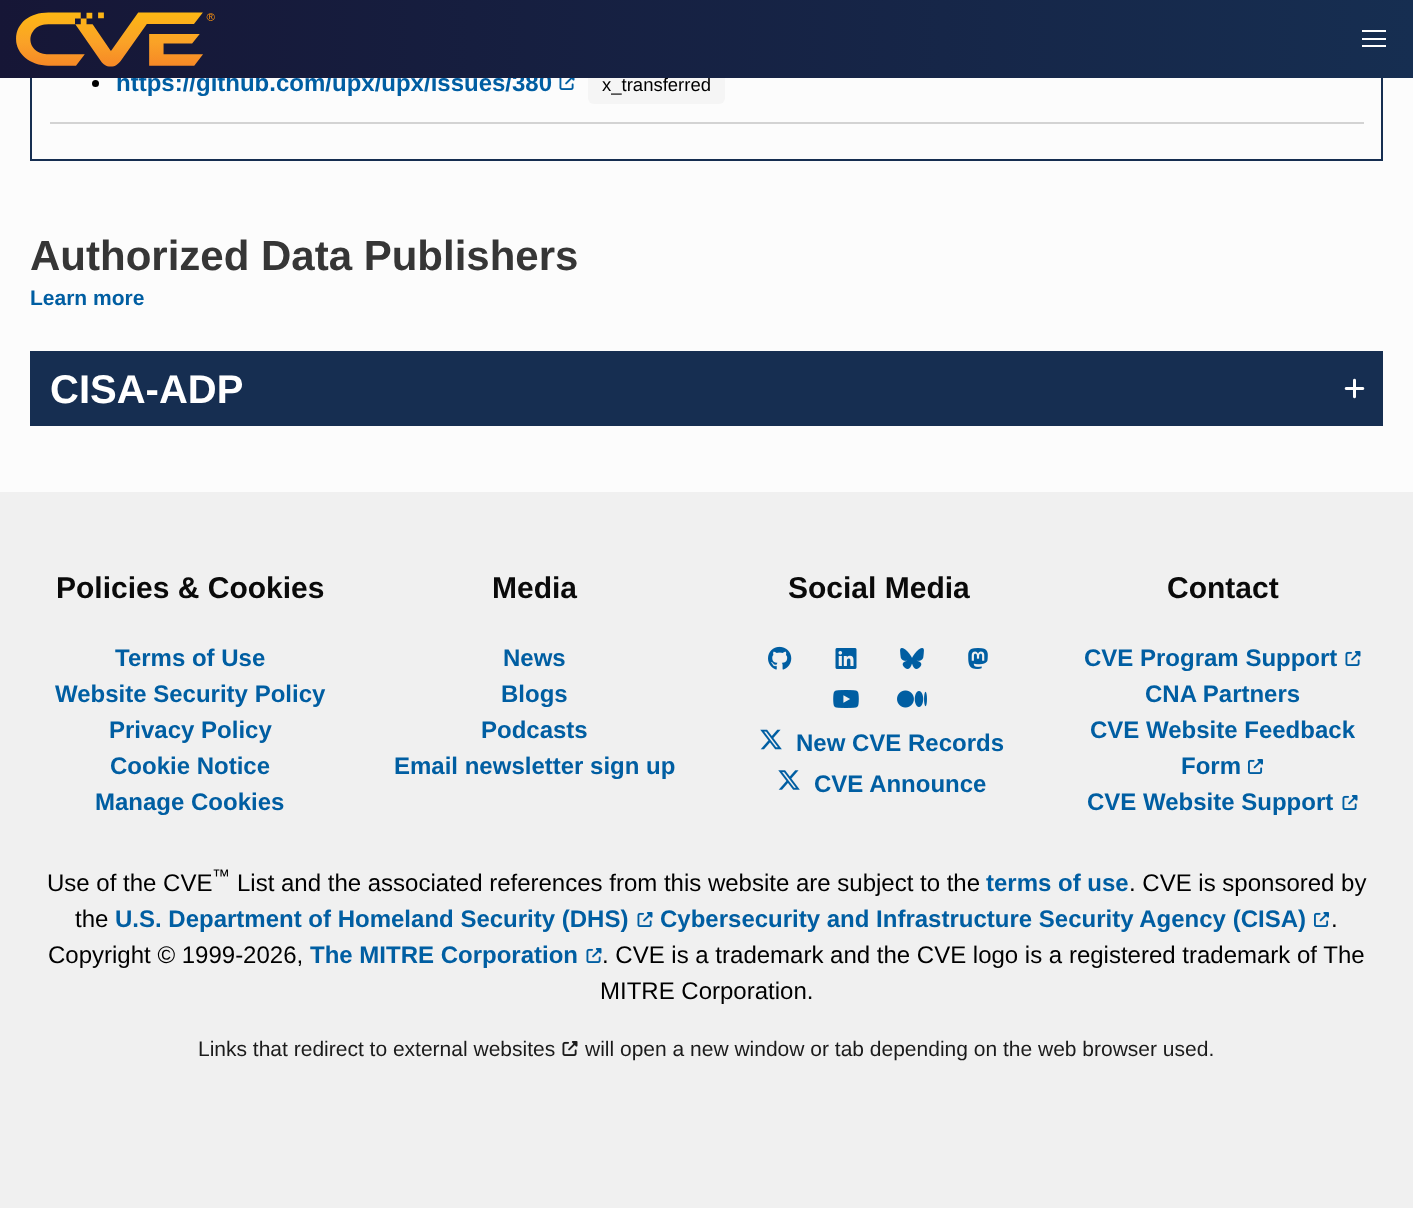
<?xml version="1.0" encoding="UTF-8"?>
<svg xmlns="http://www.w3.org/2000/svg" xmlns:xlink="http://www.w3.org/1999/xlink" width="1413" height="1208">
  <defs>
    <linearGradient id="g1" gradientUnits="userSpaceOnUse" x1="0" y1="39" x2="1413" y2="39"><stop offset="0" stop-color="#161636" /><stop offset="1" stop-color="#162e51" /></linearGradient>
  </defs>
  <rect width="100%" height="100%" fill="#fcfcfc" />
  <rect x="31" y="-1" width="1351" height="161" fill="none" stroke="#162e51" stroke-width="2" />
  <rect x="50" y="122" width="1314" height="2" fill="#d3d3d3" />
  <circle cx="95.5" cy="83.5" r="3.5" fill="#000000" />
  <image x="559" y="78" width="16" height="12" xlink:href="image2.png" />
  <rect x="588" y="66" width="137" height="38" rx="6" fill="#f5f5f5" />
  <rect x="30" y="351" width="1353" height="75" fill="#162e51" />
  <image x="1344" y="378" width="21" height="21" xlink:href="image3.png" />
  <rect y="492" width="1413" height="716" fill="#f0f0f0" />
  <image x="768" y="646" width="24" height="24" xlink:href="image4.png" />
  <image x="835" y="648" width="22" height="21" xlink:href="image5.png" />
  <image x="900" y="648" width="24" height="21" xlink:href="image6.png" />
  <image x="968" y="648" width="20" height="21" xlink:href="image7.png" />
  <image x="833" y="690" width="26" height="18" xlink:href="image8.png" />
  <image x="897" y="690" width="30" height="18" xlink:href="image9.png" />
  <image x="760" y="729" width="22" height="21" xlink:href="image10.png" />
  <image x="778" y="770" width="22" height="20" xlink:href="image11.png" />
  <image x="1345" y="651" width="16" height="15" xlink:href="image12.png" />
  <image x="1248" y="759" width="15" height="15" xlink:href="image13.png" />
  <image x="1342" y="795" width="16" height="15" xlink:href="image12.png" />
  <image x="637" y="912" width="16" height="15" xlink:href="image12.png" />
  <image x="1314" y="912" width="15" height="15" xlink:href="image13.png" />
  <image x="586" y="948" width="16" height="15" xlink:href="image12.png" />
  <image x="562" y="1041" width="16" height="15" xlink:href="image14.png" />
  <text x="116" y="91" style="font-family: Liberation Sans; font-size: 24px; font-weight: bold; fill: #005ea2">https://github.com/upx/upx/issues/380</text>
  <text x="602" y="91" style="font-family: Liberation Sans; font-size: 18.5px; fill: #000000">x_transferred</text>
  <rect width="1413" height="78" fill="url(#g1)" />
  <rect x="1362" y="45" width="24" height="2" fill="#ffffff" />
  <rect x="1362" y="38" width="24" height="2" fill="#ffffff" />
  <rect x="1362" y="30" width="24" height="2" fill="#ffffff" />
  <image x="16" y="12" width="199" height="55" xlink:href="image1.png" />
  <text x="30" y="270" style="font-family: Liberation Sans; font-size: 42px; font-weight: bold; fill: #363636">Authorized Data Publishers</text>
  <text x="30" y="305" style="font-family: Liberation Sans; font-size: 21px; font-weight: bold; fill: #005ea2">Learn more</text>
  <text x="50" y="403" style="font-family: Liberation Sans; font-size: 40px; font-weight: bold; fill: #ffffff">CISA-ADP</text>
  <text x="56" y="598" style="font-family: Liberation Sans; font-size: 30px; font-weight: bold; fill: #0a0a0a">Policies &amp; Cookies</text>
  <text x="115" y="666" style="font-family: Liberation Sans; font-size: 24px; font-weight: bold; fill: #005ea2">Terms of Use</text>
  <text x="55" y="702" style="font-family: Liberation Sans; font-size: 24px; font-weight: bold; fill: #005ea2">Website Security Policy</text>
  <text x="109" y="738" style="font-family: Liberation Sans; font-size: 24px; font-weight: bold; fill: #005ea2">Privacy Policy</text>
  <text x="110" y="774" style="font-family: Liberation Sans; font-size: 24px; font-weight: bold; fill: #005ea2">Cookie Notice</text>
  <text x="95" y="810" style="font-family: Liberation Sans; font-size: 24px; font-weight: bold; fill: #005ea2">Manage Cookies</text>
  <text x="492" y="598" style="font-family: Liberation Sans; font-size: 30px; font-weight: bold; fill: #0a0a0a">Media</text>
  <text x="503" y="666" style="font-family: Liberation Sans; font-size: 24px; font-weight: bold; fill: #005ea2">News</text>
  <text x="501" y="702" style="font-family: Liberation Sans; font-size: 24px; font-weight: bold; fill: #005ea2">Blogs</text>
  <text x="481" y="738" style="font-family: Liberation Sans; font-size: 24px; font-weight: bold; fill: #005ea2">Podcasts</text>
  <text x="394" y="774" style="font-family: Liberation Sans; font-size: 24px; font-weight: bold; fill: #005ea2">Email newsletter sign up</text>
  <text x="788" y="598" style="font-family: Liberation Sans; font-size: 30px; font-weight: bold; fill: #0a0a0a">Social Media</text>
  <text x="796" y="751" style="font-family: Liberation Sans; font-size: 24px; font-weight: bold; fill: #005ea2">New CVE Records</text>
  <text x="814" y="792" style="font-family: Liberation Sans; font-size: 24px; font-weight: bold; fill: #005ea2">CVE Announce</text>
  <text x="1167" y="598" style="font-family: Liberation Sans; font-size: 30px; font-weight: bold; fill: #0a0a0a">Contact</text>
  <text x="1084" y="666" style="font-family: Liberation Sans; font-size: 24px; font-weight: bold; fill: #005ea2">CVE Program Support</text>
  <text x="1145" y="702" style="font-family: Liberation Sans; font-size: 24px; font-weight: bold; fill: #005ea2">CNA Partners</text>
  <text x="1090" y="738" style="font-family: Liberation Sans; font-size: 24px; font-weight: bold; fill: #005ea2">CVE Website Feedback</text>
  <text x="1181" y="774" style="font-family: Liberation Sans; font-size: 24px; font-weight: bold; fill: #005ea2">Form</text>
  <text x="1087" y="810" style="font-family: Liberation Sans; font-size: 24px; font-weight: bold; fill: #005ea2">CVE Website Support</text>
  <text x="47" y="891" style="font-family: Liberation Sans; font-size: 24px; fill: #000000">Use of the CVE</text>
  <text x="212" y="882" style="font-family: Liberation Sans; font-size: 18px; fill: #000000">™</text>
  <text x="237" y="891" style="font-family: Liberation Sans; font-size: 24px; fill: #000000">List and the associated references from this website are subject to the</text>
  <text x="986" y="891" style="font-family: Liberation Sans; font-size: 24px; font-weight: bold; fill: #005ea2">terms of use</text>
  <text x="1129" y="891" style="font-family: Liberation Sans; font-size: 24px; fill: #000000">. CVE is sponsored by</text>
  <text x="75" y="927" style="font-family: Liberation Sans; font-size: 24px; fill: #000000">the</text>
  <text x="115" y="927" style="font-family: Liberation Sans; font-size: 24px; font-weight: bold; fill: #005ea2">U.S. Department of Homeland Security (DHS)</text>
  <text x="660" y="927" style="font-family: Liberation Sans; font-size: 24px; font-weight: bold; fill: #005ea2">Cybersecurity and Infrastructure Security Agency (CISA)</text>
  <text x="1331" y="927" style="font-family: Liberation Sans; font-size: 24px; fill: #000000">.</text>
  <text x="48" y="963" style="font-family: Liberation Sans; font-size: 24px; fill: #000000">Copyright © 1999-2026,</text>
  <text x="310" y="963" style="font-family: Liberation Sans; font-size: 24px; font-weight: bold; fill: #005ea2">The MITRE Corporation</text>
  <text x="602" y="963" style="font-family: Liberation Sans; font-size: 24px; fill: #000000">. CVE is a trademark and the CVE logo is a registered trademark of The</text>
  <text x="600" y="999" style="font-family: Liberation Sans; font-size: 24px; fill: #000000">MITRE Corporation.</text>
  <text x="198" y="1056" style="font-family: Liberation Sans; font-size: 21px; fill: #1b1b1b">Links that redirect to external websites</text>
  <text x="585" y="1056" style="font-family: Liberation Sans; font-size: 21px; fill: #1b1b1b">will open a new window or tab depending on the web browser used.</text>
</svg>
